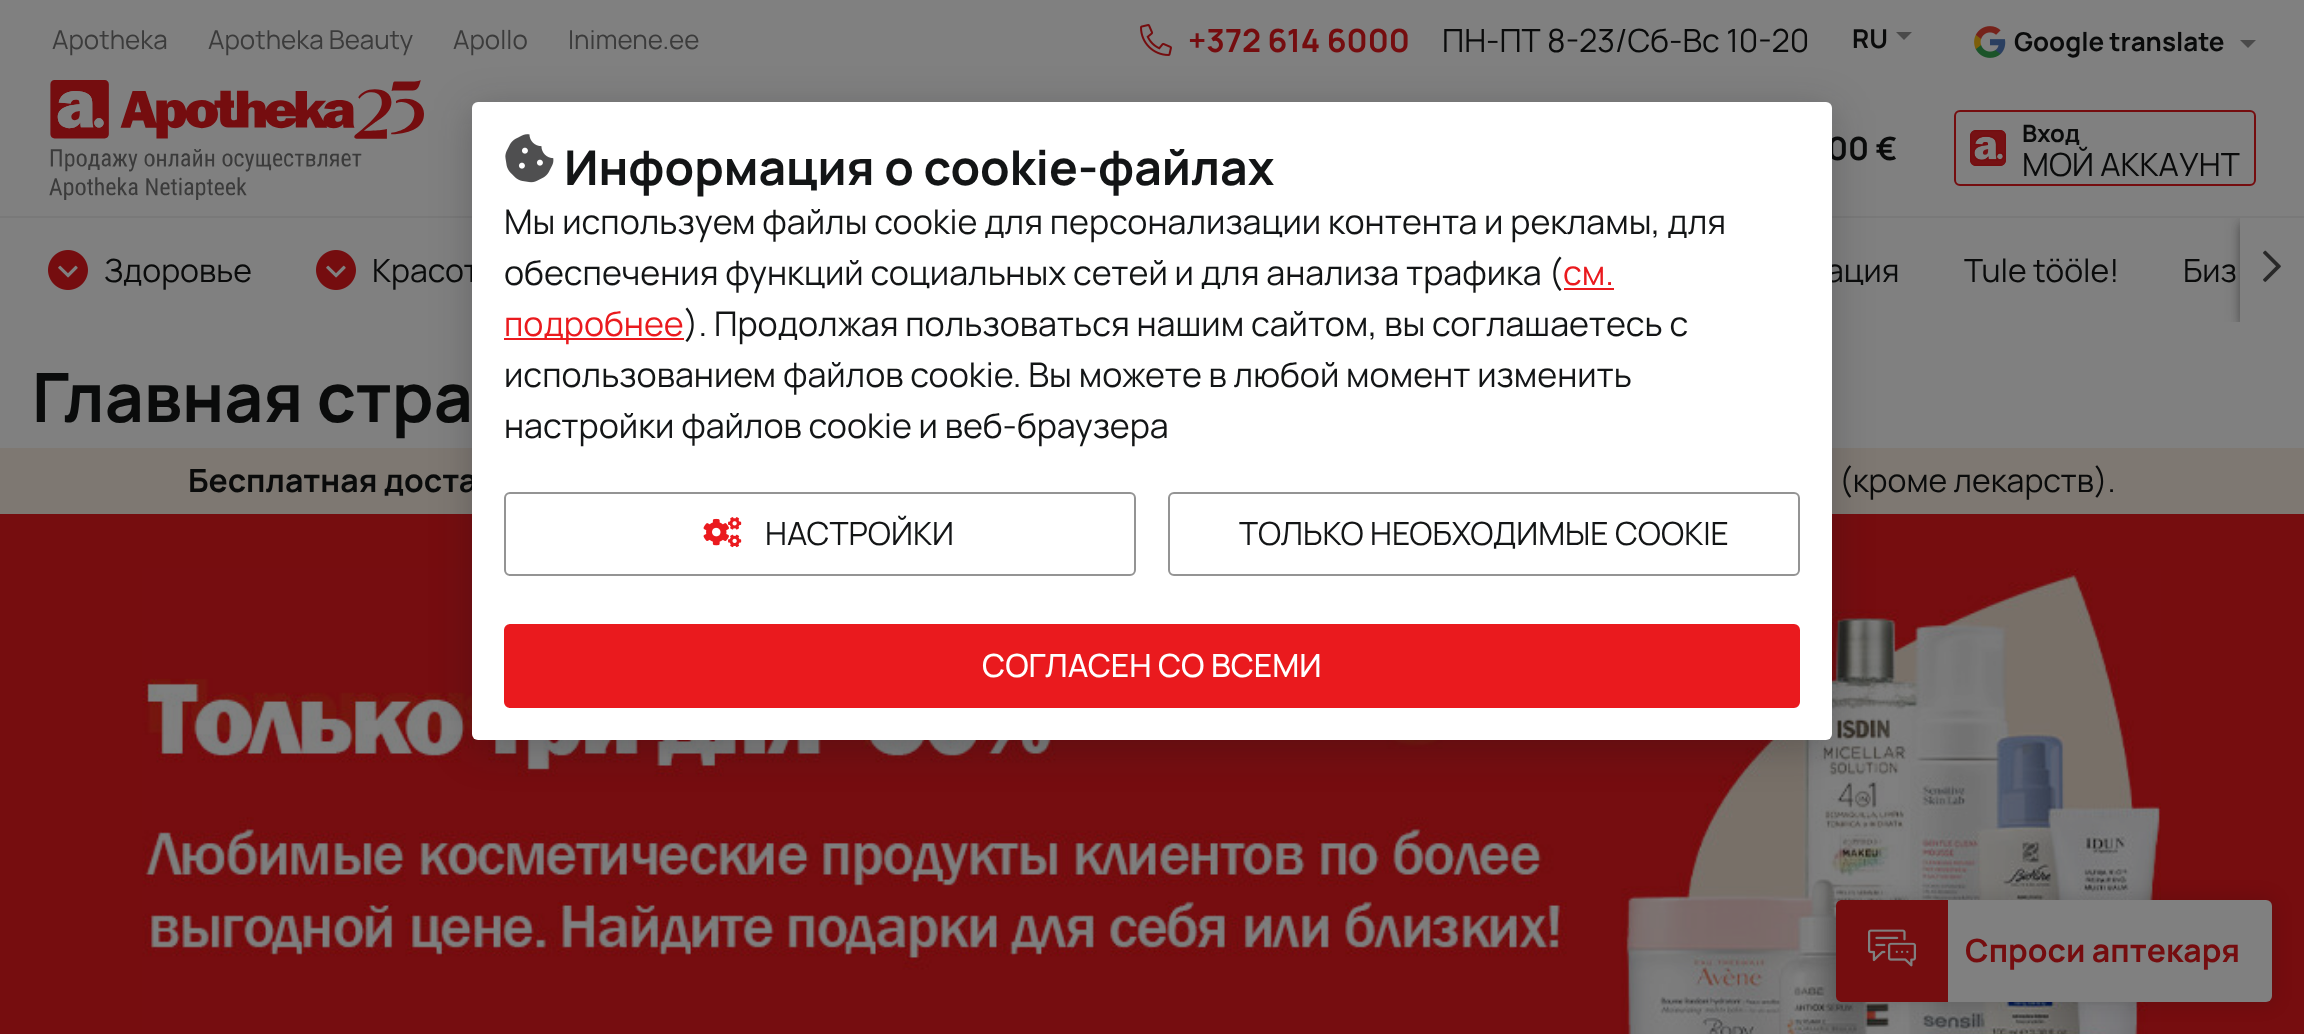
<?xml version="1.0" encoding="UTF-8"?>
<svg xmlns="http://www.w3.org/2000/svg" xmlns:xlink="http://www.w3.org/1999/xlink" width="2304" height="1034">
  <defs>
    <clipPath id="clip1"><rect x="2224" y="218" width="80" height="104" /></clipPath>
  </defs>
  <rect width="100%" height="100%" fill="#808080" />
  <image x="1140" y="24" width="32" height="32" xlink:href="image1.png" />
  <path d="M 1896 32 h 16 l -8 8 z" fill="#4a4a4a" />
  <image x="1974" y="26" width="32" height="32" xlink:href="image2.png" />
  <path d="M 2240 40 h 16 l -8 8 z" fill="#4a4a4a" />
  <rect y="216" width="2304" height="2" fill="#797979" />
  <image x="49" y="80" width="375" height="120" xlink:href="image3.png" />
  <image x="1970" y="130" width="36" height="36" xlink:href="image4.png" />
  <rect x="1955" y="111" width="300" height="74" rx="5" fill="none" stroke="#750d0f" stroke-width="2" />
  <image x="48" y="250" width="40" height="40" xlink:href="image5.png" />
  <image x="316" y="250" width="40" height="40" xlink:href="image5.png" />
  <g clip-path="url(#clip1)">
    <rect x="2240" y="226" width="64" height="104" fill="#000000" fill-opacity="0.14" filter="blur(5px)" />
    <rect x="2240" y="220" width="64" height="104" fill="#000000" fill-opacity="0.12" filter="blur(10px)" />
    <rect x="2240" y="222" width="64" height="104" fill="#000000" fill-opacity="0.2" filter="blur(4px)" />
  </g>
  <rect x="2240" y="218" width="64" height="104" fill="#808080" />
  <image x="2263" y="250" width="18" height="32" xlink:href="image6.png" />
  <rect y="448" width="2304" height="66" fill="#7e7872" />
  <rect y="514" width="2304" height="520" fill="#760d0f" />
  <image x="142" y="568" width="2019" height="466" xlink:href="image7.png" />
  <rect x="1836" y="900" width="436" height="102" rx="6" fill="#000000" fill-opacity="0.15" filter="blur(10px)" />
  <rect x="1836" y="900" width="436" height="102" rx="6" fill="#808080" />
  <path d="M 1842 900 h 106 v 102 h -106 c -3.5 0 -6 -2.5 -6 -6 v -90 c 0 -3.5 2.5 -6 6 -6 z" fill="#750d0f" />
  <image x="1868" y="929" width="48" height="38" xlink:href="image8.png" />
  <rect x="472" y="110" width="1360" height="638" rx="6" fill="#131516" fill-opacity="0.25" filter="blur(20px)" />
  <text x="52" y="49" style="font-family: Manrope; font-size: 26px; fill: #3b3b3b">Apotheka</text>
  <text x="208" y="49" style="font-family: Manrope; font-size: 26px; fill: #3b3b3b">Apotheka Beauty</text>
  <text x="453" y="49" style="font-family: Manrope; font-size: 26px; fill: #3b3b3b">Apollo</text>
  <text x="568" y="49" style="font-family: Manrope; font-size: 26px; fill: #3b3b3b">Inimene.ee</text>
  <text x="1188" y="52" style="font-family: Manrope; font-size: 32px; font-weight: bold; fill: #750d0f">+372 614 6000</text>
  <text x="1442" y="52" style="font-family: Manrope; font-size: 32px; fill: #0a0b0b">ПН-ПТ 8-23/Сб-Вс 10-20</text>
  <text x="1852" y="48" style="font-family: Manrope; font-size: 26px; font-weight: bold; fill: #0a0b0b">RU</text>
  <text x="2014" y="51" style="font-family: Manrope; font-size: 26px; font-weight: bold; fill: #0a0b0b">Google translate</text>
  <text x="1827" y="160" style="font-family: Manrope; font-size: 32px; font-weight: bold; fill: #0a0b0b">00 €</text>
  <text x="2022" y="142" style="font-family: Manrope; font-size: 24px; font-weight: bold; fill: #0a0b0b">Вход</text>
  <text x="2022" y="176" style="font-family: Manrope; font-size: 32px; fill: #0a0b0b">МОЙ АККАУНТ</text>
  <text x="104" y="282" style="font-family: Manrope; font-size: 32px; fill: #0a0b0b">Здоровье</text>
  <text x="372" y="282" style="font-family: Manrope; font-size: 32px; fill: #0a0b0b">Красот</text>
  <text x="1826" y="282" style="font-family: Manrope; font-size: 32px; fill: #0a0b0b">ация</text>
  <text x="1964" y="282" style="font-family: Manrope; font-size: 32px; fill: #0a0b0b">Tule tööle!</text>
  <text x="2183" y="282" style="font-family: Manrope; font-size: 32px; fill: #0a0b0b">Биз</text>
  <text x="32" y="422" style="font-family: Manrope; font-size: 68px; font-weight: bold; fill: #0a0b0b">Главная стра</text>
  <text x="188" y="492" style="font-family: Manrope; font-size: 32px; font-weight: bold; fill: #0a0b0b">Бесплатная доста</text>
  <text x="1839" y="492" style="font-family: Manrope; font-size: 32px; fill: #0a0b0b">(кроме лекарств).</text>
  <text x="1965" y="962" style="font-family: Manrope; font-size: 32px; font-weight: bold; fill: #750d0f">Спроси аптекаря</text>
  <rect x="472" y="102" width="1360" height="638" rx="6" fill="#ffffff" />
  <image x="505" y="134" width="49" height="49" xlink:href="image9.png" />
  <text x="564" y="185" style="font-family: Manrope; font-size: 48px; font-weight: bold; fill: #131516">Информация о cookie-файлах</text>
  <text x="504" y="234" style="font-family: Manrope; font-size: 34px; fill: #131516">Мы используем файлы cookie для персонализации контента и рекламы, для</text>
  <text x="504" y="285" style="font-family: Manrope; font-size: 34px; fill: #131516">обеспечения функций социальных сетей и для анализа трафика (</text>
  <text x="1563" y="285" style="font-family: Manrope; font-size: 34px; fill: #ea1a1e">см.</text>
  <rect x="1564" y="288" width="50" height="2" fill="#ea1a1e" />
  <rect x="504" y="338" width="180" height="2" fill="#ea1a1e" />
  <text x="504" y="336" style="font-family: Manrope; font-size: 34px; fill: #ea1a1e">подробнее</text>
  <text x="684" y="336" style="font-family: Manrope; font-size: 34px; fill: #131516">). Продолжая пользоваться нашим сайтом, вы соглашаетесь с</text>
  <text x="504" y="387" style="font-family: Manrope; font-size: 34px; fill: #131516">использованием файлов cookie. Вы можете в любой момент изменить</text>
  <text x="504" y="438" style="font-family: Manrope; font-size: 34px; fill: #131516">настройки файлов cookie и веб-браузера</text>
  <rect x="505" y="493" width="630" height="82" rx="5" fill="none" stroke="#949494" stroke-width="2" />
  <image x="703" y="517" width="39" height="31" xlink:href="image10.png" />
  <text x="765" y="545" style="font-family: Manrope; font-size: 32px; fill: #131516">НАСТРОЙКИ</text>
  <rect x="1169" y="493" width="630" height="82" rx="5" fill="none" stroke="#949494" stroke-width="2" />
  <text x="1239" y="545" style="font-family: Manrope; font-size: 32px; fill: #131516">ТОЛЬКО НЕОБХОДИМЫЕ COOKIE</text>
  <rect x="505" y="625" width="1294" height="82" rx="5" fill="#ea1a1e" stroke="#ea1a1e" stroke-width="2" />
  <text x="982" y="677" style="font-family: Manrope; font-size: 32px; font-weight: 500; fill: #ffffff">СОГЛАСЕН СО ВСЕМИ</text>
</svg>
